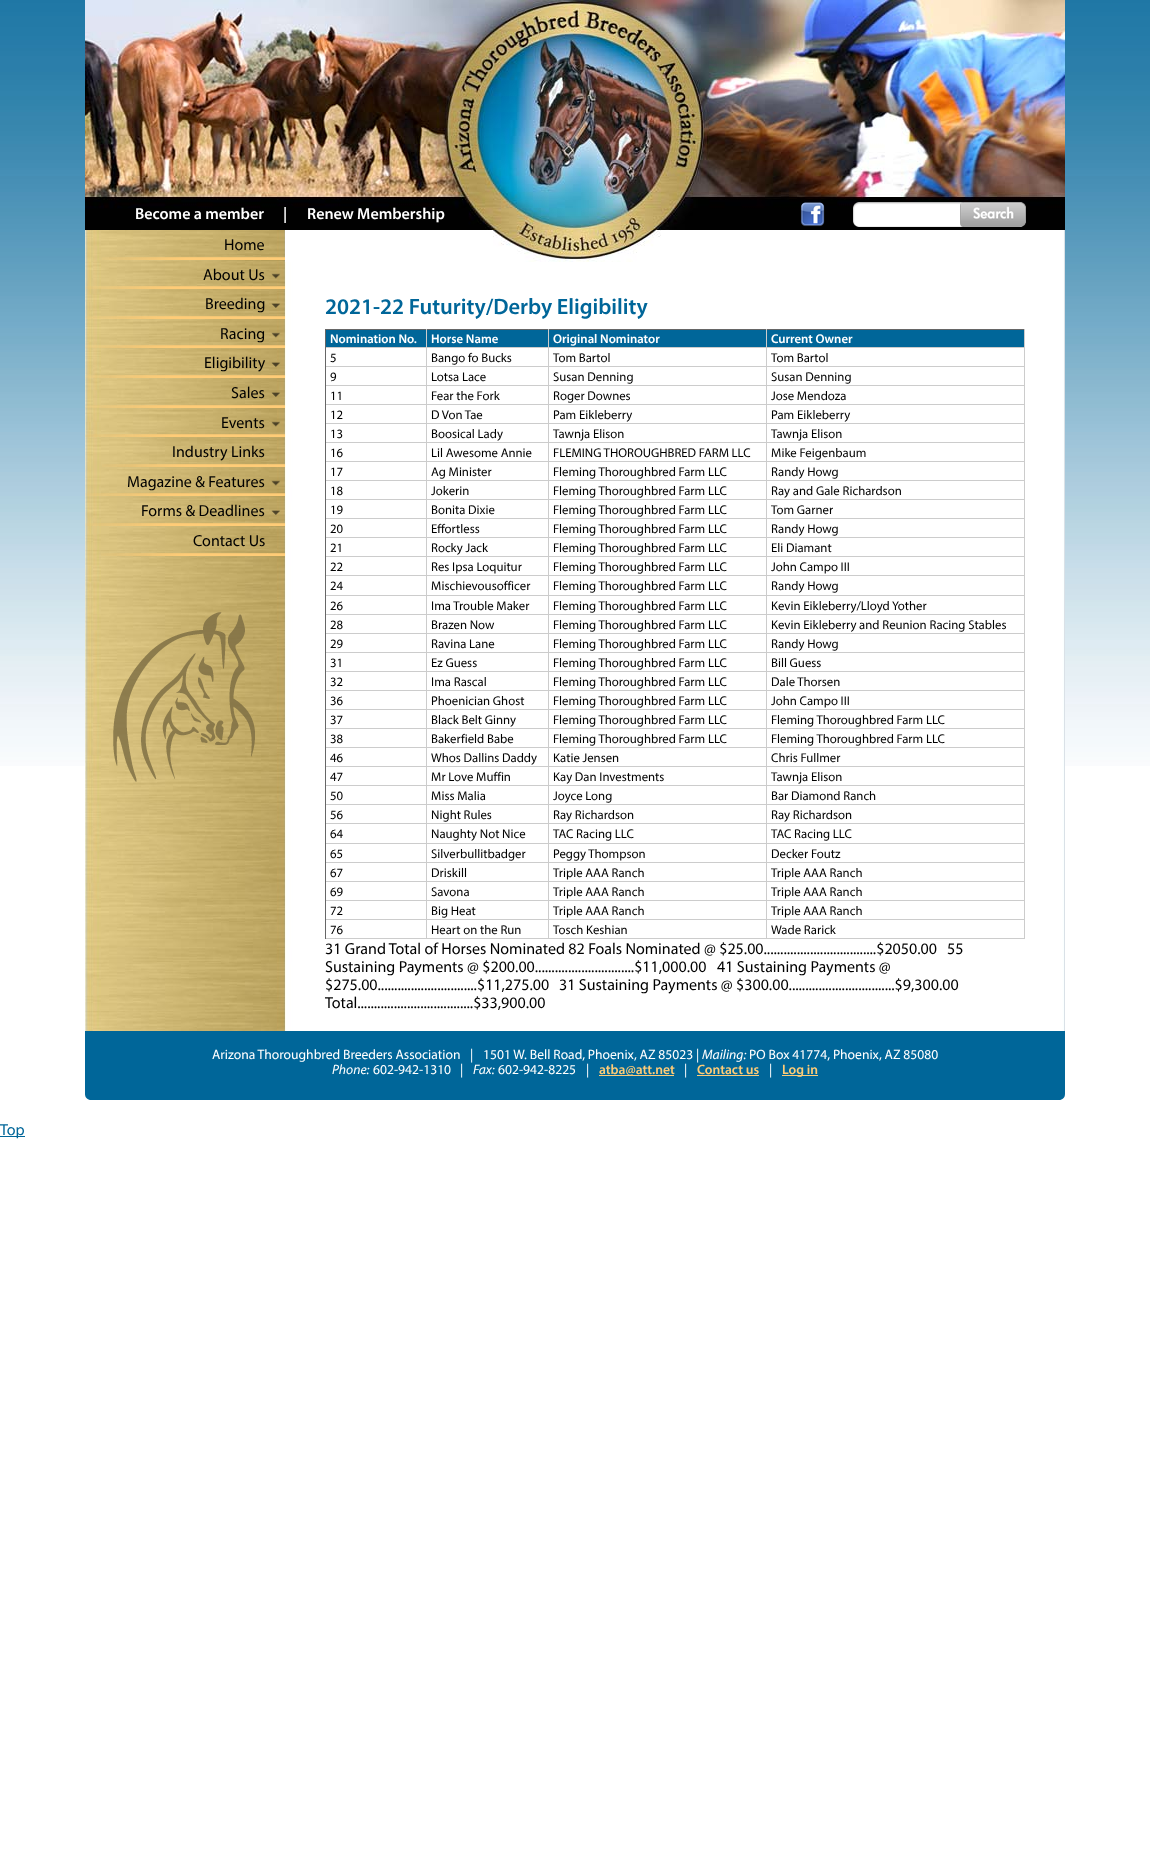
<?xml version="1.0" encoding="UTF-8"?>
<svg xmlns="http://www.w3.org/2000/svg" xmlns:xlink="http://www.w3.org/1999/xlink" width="1150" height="1858">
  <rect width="100%" height="100%" fill="#ffffff" />
  <image x="0" y="0" width="1150" height="766" xlink:href="image1.png" />
  <image x="85" y="0" width="980" height="230" xlink:href="image2.png" />
  <image x="800" y="202" width="25" height="25" xlink:href="image3.png" />
  <image x="853" y="202" width="111" height="25" xlink:href="image4.png" />
  <image x="960" y="202" width="66" height="25" xlink:href="image5.png" />
  <image x="85" y="230" width="980" height="801" xlink:href="image6.png" />
  <image x="102" y="257" width="183" height="3" xlink:href="image7.png" />
  <image x="85" y="273" width="200" height="16" xlink:href="image8.png" />
  <image x="85" y="303" width="200" height="16" xlink:href="image9.png" />
  <image x="85" y="332" width="200" height="16" xlink:href="image10.png" />
  <image x="85" y="362" width="200" height="16" xlink:href="image11.png" />
  <image x="85" y="392" width="200" height="16" xlink:href="image12.png" />
  <image x="85" y="421" width="200" height="16" xlink:href="image13.png" />
  <image x="102" y="464" width="183" height="3" xlink:href="image14.png" />
  <image x="85" y="480" width="200" height="16" xlink:href="image15.png" />
  <image x="85" y="510" width="200" height="16" xlink:href="image16.png" />
  <image x="101" y="553" width="184" height="3" xlink:href="image17.png" />
  <image x="113" y="612" width="142" height="170" xlink:href="image18.png" />
  <image x="285" y="230" width="376" height="32" xlink:href="image19.png" />
  <rect x="326" y="330" width="100" height="17" fill="#006699" />
  <rect x="325" y="329" width="700" height="1" fill="#666666" />
  <rect x="1024" y="461" width="1" height="478" fill="#cccccc" />
  <rect x="1024" y="347" width="1" height="115" fill="#cccccc" />
  <rect x="1024" y="329" width="1" height="19" fill="#cccccc" />
  <rect x="766" y="938" width="259" height="1" fill="#cccccc" />
  <rect x="766" y="919" width="1" height="20" fill="#cccccc" />
  <rect x="766" y="919" width="259" height="1" fill="#cccccc" />
  <rect x="766" y="900" width="1" height="20" fill="#cccccc" />
  <rect x="766" y="900" width="259" height="1" fill="#cccccc" />
  <rect x="766" y="881" width="1" height="20" fill="#cccccc" />
  <rect x="766" y="881" width="259" height="1" fill="#cccccc" />
  <rect x="766" y="862" width="1" height="20" fill="#cccccc" />
  <rect x="766" y="862" width="259" height="1" fill="#cccccc" />
  <rect x="766" y="843" width="1" height="20" fill="#cccccc" />
  <rect x="766" y="843" width="259" height="1" fill="#cccccc" />
  <rect x="766" y="823" width="1" height="21" fill="#cccccc" />
  <rect x="766" y="823" width="259" height="1" fill="#cccccc" />
  <rect x="766" y="804" width="1" height="20" fill="#cccccc" />
  <rect x="766" y="804" width="259" height="1" fill="#cccccc" />
  <rect x="766" y="785" width="1" height="20" fill="#cccccc" />
  <rect x="766" y="785" width="259" height="1" fill="#cccccc" />
  <rect x="766" y="766" width="1" height="20" fill="#cccccc" />
  <rect x="766" y="766" width="259" height="1" fill="#cccccc" />
  <rect x="766" y="747" width="1" height="20" fill="#cccccc" />
  <rect x="766" y="747" width="259" height="1" fill="#cccccc" />
  <rect x="766" y="728" width="1" height="20" fill="#cccccc" />
  <rect x="766" y="728" width="259" height="1" fill="#cccccc" />
  <rect x="766" y="709" width="1" height="20" fill="#cccccc" />
  <rect x="766" y="709" width="259" height="1" fill="#cccccc" />
  <rect x="766" y="690" width="1" height="20" fill="#cccccc" />
  <rect x="766" y="690" width="259" height="1" fill="#cccccc" />
  <rect x="766" y="671" width="1" height="20" fill="#cccccc" />
  <rect x="766" y="671" width="259" height="1" fill="#cccccc" />
  <rect x="766" y="652" width="1" height="20" fill="#cccccc" />
  <rect x="766" y="652" width="259" height="1" fill="#cccccc" />
  <rect x="766" y="633" width="1" height="20" fill="#cccccc" />
  <rect x="766" y="633" width="259" height="1" fill="#cccccc" />
  <rect x="766" y="614" width="1" height="20" fill="#cccccc" />
  <rect x="766" y="614" width="259" height="1" fill="#cccccc" />
  <rect x="766" y="595" width="1" height="20" fill="#cccccc" />
  <rect x="766" y="595" width="259" height="1" fill="#cccccc" />
  <rect x="766" y="575" width="1" height="21" fill="#cccccc" />
  <rect x="766" y="575" width="259" height="1" fill="#cccccc" />
  <rect x="766" y="556" width="1" height="20" fill="#cccccc" />
  <rect x="766" y="556" width="259" height="1" fill="#cccccc" />
  <rect x="766" y="537" width="1" height="20" fill="#cccccc" />
  <rect x="766" y="537" width="259" height="1" fill="#cccccc" />
  <rect x="766" y="518" width="1" height="20" fill="#cccccc" />
  <rect x="766" y="518" width="259" height="1" fill="#cccccc" />
  <rect x="766" y="499" width="1" height="20" fill="#cccccc" />
  <rect x="766" y="499" width="259" height="1" fill="#cccccc" />
  <rect x="766" y="480" width="1" height="20" fill="#cccccc" />
  <rect x="766" y="480" width="259" height="1" fill="#cccccc" />
  <rect x="766" y="461" width="1" height="20" fill="#cccccc" />
  <rect x="766" y="461" width="259" height="1" fill="#cccccc" />
  <rect x="766" y="442" width="1" height="20" fill="#cccccc" />
  <rect x="766" y="442" width="259" height="1" fill="#cccccc" />
  <rect x="766" y="423" width="1" height="20" fill="#cccccc" />
  <rect x="766" y="423" width="259" height="1" fill="#cccccc" />
  <rect x="766" y="404" width="1" height="20" fill="#cccccc" />
  <rect x="766" y="404" width="259" height="1" fill="#cccccc" />
  <rect x="766" y="385" width="1" height="20" fill="#cccccc" />
  <rect x="766" y="385" width="259" height="1" fill="#cccccc" />
  <rect x="766" y="366" width="1" height="20" fill="#cccccc" />
  <rect x="766" y="366" width="259" height="1" fill="#cccccc" />
  <rect x="766" y="347" width="1" height="20" fill="#cccccc" />
  <rect x="766" y="347" width="259" height="1" fill="#cccccc" />
  <rect x="766" y="329" width="1" height="19" fill="#cccccc" />
  <rect x="548" y="938" width="219" height="1" fill="#cccccc" />
  <rect x="548" y="919" width="1" height="20" fill="#cccccc" />
  <rect x="548" y="919" width="219" height="1" fill="#cccccc" />
  <rect x="548" y="900" width="1" height="20" fill="#cccccc" />
  <rect x="548" y="900" width="219" height="1" fill="#cccccc" />
  <rect x="548" y="881" width="1" height="20" fill="#cccccc" />
  <rect x="548" y="881" width="219" height="1" fill="#cccccc" />
  <rect x="548" y="862" width="1" height="20" fill="#cccccc" />
  <rect x="548" y="862" width="219" height="1" fill="#cccccc" />
  <rect x="548" y="843" width="1" height="20" fill="#cccccc" />
  <rect x="548" y="843" width="219" height="1" fill="#cccccc" />
  <rect x="548" y="823" width="1" height="21" fill="#cccccc" />
  <rect x="548" y="823" width="219" height="1" fill="#cccccc" />
  <rect x="548" y="804" width="1" height="20" fill="#cccccc" />
  <rect x="548" y="804" width="219" height="1" fill="#cccccc" />
  <rect x="548" y="785" width="1" height="20" fill="#cccccc" />
  <rect x="548" y="785" width="219" height="1" fill="#cccccc" />
  <rect x="548" y="766" width="1" height="20" fill="#cccccc" />
  <rect x="548" y="766" width="219" height="1" fill="#cccccc" />
  <rect x="548" y="747" width="1" height="20" fill="#cccccc" />
  <rect x="548" y="747" width="219" height="1" fill="#cccccc" />
  <rect x="548" y="728" width="1" height="20" fill="#cccccc" />
  <rect x="548" y="728" width="219" height="1" fill="#cccccc" />
  <rect x="548" y="709" width="1" height="20" fill="#cccccc" />
  <rect x="548" y="709" width="219" height="1" fill="#cccccc" />
  <rect x="548" y="690" width="1" height="20" fill="#cccccc" />
  <rect x="548" y="690" width="219" height="1" fill="#cccccc" />
  <rect x="548" y="671" width="1" height="20" fill="#cccccc" />
  <rect x="548" y="671" width="219" height="1" fill="#cccccc" />
  <rect x="548" y="652" width="1" height="20" fill="#cccccc" />
  <rect x="548" y="652" width="219" height="1" fill="#cccccc" />
  <rect x="548" y="633" width="1" height="20" fill="#cccccc" />
  <rect x="548" y="633" width="219" height="1" fill="#cccccc" />
  <rect x="548" y="614" width="1" height="20" fill="#cccccc" />
  <rect x="548" y="614" width="219" height="1" fill="#cccccc" />
  <rect x="548" y="595" width="1" height="20" fill="#cccccc" />
  <rect x="548" y="595" width="219" height="1" fill="#cccccc" />
  <rect x="548" y="575" width="1" height="21" fill="#cccccc" />
  <rect x="548" y="575" width="219" height="1" fill="#cccccc" />
  <rect x="548" y="556" width="1" height="20" fill="#cccccc" />
  <rect x="548" y="556" width="219" height="1" fill="#cccccc" />
  <rect x="548" y="537" width="1" height="20" fill="#cccccc" />
  <rect x="548" y="537" width="219" height="1" fill="#cccccc" />
  <rect x="548" y="518" width="1" height="20" fill="#cccccc" />
  <rect x="548" y="518" width="219" height="1" fill="#cccccc" />
  <rect x="548" y="499" width="1" height="20" fill="#cccccc" />
  <rect x="548" y="499" width="219" height="1" fill="#cccccc" />
  <rect x="548" y="480" width="1" height="20" fill="#cccccc" />
  <rect x="548" y="480" width="219" height="1" fill="#cccccc" />
  <rect x="548" y="461" width="1" height="20" fill="#cccccc" />
  <rect x="548" y="461" width="219" height="1" fill="#cccccc" />
  <rect x="548" y="442" width="1" height="20" fill="#cccccc" />
  <rect x="548" y="442" width="219" height="1" fill="#cccccc" />
  <rect x="548" y="423" width="1" height="20" fill="#cccccc" />
  <rect x="548" y="423" width="219" height="1" fill="#cccccc" />
  <rect x="548" y="404" width="1" height="20" fill="#cccccc" />
  <rect x="548" y="404" width="219" height="1" fill="#cccccc" />
  <rect x="548" y="385" width="1" height="20" fill="#cccccc" />
  <rect x="548" y="385" width="219" height="1" fill="#cccccc" />
  <rect x="548" y="366" width="1" height="20" fill="#cccccc" />
  <rect x="548" y="366" width="219" height="1" fill="#cccccc" />
  <rect x="548" y="347" width="1" height="20" fill="#cccccc" />
  <rect x="548" y="347" width="219" height="1" fill="#cccccc" />
  <rect x="548" y="329" width="1" height="19" fill="#cccccc" />
  <rect x="426" y="938" width="123" height="1" fill="#cccccc" />
  <rect x="426" y="919" width="1" height="20" fill="#cccccc" />
  <rect x="426" y="919" width="123" height="1" fill="#cccccc" />
  <rect x="426" y="900" width="1" height="20" fill="#cccccc" />
  <rect x="426" y="900" width="123" height="1" fill="#cccccc" />
  <rect x="426" y="881" width="1" height="20" fill="#cccccc" />
  <rect x="426" y="881" width="123" height="1" fill="#cccccc" />
  <rect x="426" y="862" width="1" height="20" fill="#cccccc" />
  <rect x="426" y="862" width="123" height="1" fill="#cccccc" />
  <rect x="426" y="843" width="1" height="20" fill="#cccccc" />
  <rect x="426" y="843" width="123" height="1" fill="#cccccc" />
  <rect x="426" y="823" width="1" height="21" fill="#cccccc" />
  <rect x="426" y="823" width="123" height="1" fill="#cccccc" />
  <rect x="426" y="804" width="1" height="20" fill="#cccccc" />
  <rect x="426" y="804" width="123" height="1" fill="#cccccc" />
  <rect x="426" y="785" width="1" height="20" fill="#cccccc" />
  <rect x="426" y="785" width="123" height="1" fill="#cccccc" />
  <rect x="426" y="766" width="1" height="20" fill="#cccccc" />
  <rect x="426" y="766" width="123" height="1" fill="#cccccc" />
  <rect x="426" y="747" width="1" height="20" fill="#cccccc" />
  <rect x="426" y="747" width="123" height="1" fill="#cccccc" />
  <rect x="426" y="728" width="1" height="20" fill="#cccccc" />
  <rect x="426" y="728" width="123" height="1" fill="#cccccc" />
  <rect x="426" y="709" width="1" height="20" fill="#cccccc" />
  <rect x="426" y="709" width="123" height="1" fill="#cccccc" />
  <rect x="426" y="690" width="1" height="20" fill="#cccccc" />
  <rect x="426" y="690" width="123" height="1" fill="#cccccc" />
  <rect x="426" y="671" width="1" height="20" fill="#cccccc" />
  <rect x="426" y="671" width="123" height="1" fill="#cccccc" />
  <rect x="426" y="652" width="1" height="20" fill="#cccccc" />
  <rect x="426" y="652" width="123" height="1" fill="#cccccc" />
  <rect x="426" y="633" width="1" height="20" fill="#cccccc" />
  <rect x="426" y="633" width="123" height="1" fill="#cccccc" />
  <rect x="426" y="614" width="1" height="20" fill="#cccccc" />
  <rect x="426" y="614" width="123" height="1" fill="#cccccc" />
  <rect x="426" y="595" width="1" height="20" fill="#cccccc" />
  <rect x="426" y="595" width="123" height="1" fill="#cccccc" />
  <rect x="426" y="575" width="1" height="21" fill="#cccccc" />
  <rect x="426" y="575" width="123" height="1" fill="#cccccc" />
  <rect x="426" y="556" width="1" height="20" fill="#cccccc" />
  <rect x="426" y="556" width="123" height="1" fill="#cccccc" />
  <rect x="426" y="537" width="1" height="20" fill="#cccccc" />
  <rect x="426" y="537" width="123" height="1" fill="#cccccc" />
  <rect x="426" y="518" width="1" height="20" fill="#cccccc" />
  <rect x="426" y="518" width="123" height="1" fill="#cccccc" />
  <rect x="426" y="499" width="1" height="20" fill="#cccccc" />
  <rect x="426" y="499" width="123" height="1" fill="#cccccc" />
  <rect x="426" y="480" width="1" height="20" fill="#cccccc" />
  <rect x="426" y="480" width="123" height="1" fill="#cccccc" />
  <rect x="426" y="461" width="1" height="20" fill="#cccccc" />
  <rect x="426" y="461" width="123" height="1" fill="#cccccc" />
  <rect x="426" y="442" width="1" height="20" fill="#cccccc" />
  <rect x="426" y="442" width="123" height="1" fill="#cccccc" />
  <rect x="426" y="423" width="1" height="20" fill="#cccccc" />
  <rect x="426" y="423" width="123" height="1" fill="#cccccc" />
  <rect x="426" y="404" width="1" height="20" fill="#cccccc" />
  <rect x="426" y="404" width="123" height="1" fill="#cccccc" />
  <rect x="426" y="385" width="1" height="20" fill="#cccccc" />
  <rect x="426" y="385" width="123" height="1" fill="#cccccc" />
  <rect x="426" y="366" width="1" height="20" fill="#cccccc" />
  <rect x="426" y="366" width="123" height="1" fill="#cccccc" />
  <rect x="426" y="347" width="1" height="20" fill="#cccccc" />
  <rect x="426" y="347" width="123" height="1" fill="#cccccc" />
  <rect x="426" y="329" width="1" height="19" fill="#cccccc" />
  <rect x="325" y="938" width="102" height="1" fill="#cccccc" />
  <rect x="325" y="919" width="1" height="20" fill="#666666" />
  <rect x="325" y="919" width="102" height="1" fill="#cccccc" />
  <rect x="325" y="900" width="1" height="20" fill="#666666" />
  <rect x="325" y="900" width="102" height="1" fill="#cccccc" />
  <rect x="325" y="881" width="1" height="20" fill="#666666" />
  <rect x="325" y="881" width="102" height="1" fill="#cccccc" />
  <rect x="325" y="862" width="1" height="20" fill="#666666" />
  <rect x="325" y="862" width="102" height="1" fill="#cccccc" />
  <rect x="325" y="843" width="1" height="20" fill="#666666" />
  <rect x="325" y="843" width="102" height="1" fill="#cccccc" />
  <rect x="325" y="823" width="1" height="21" fill="#666666" />
  <rect x="325" y="823" width="102" height="1" fill="#cccccc" />
  <rect x="325" y="804" width="1" height="20" fill="#666666" />
  <rect x="325" y="804" width="102" height="1" fill="#cccccc" />
  <rect x="325" y="785" width="1" height="20" fill="#666666" />
  <rect x="325" y="785" width="102" height="1" fill="#cccccc" />
  <rect x="325" y="766" width="1" height="20" fill="#666666" />
  <rect x="325" y="766" width="102" height="1" fill="#cccccc" />
  <rect x="325" y="747" width="1" height="20" fill="#666666" />
  <rect x="325" y="747" width="102" height="1" fill="#cccccc" />
  <rect x="325" y="728" width="1" height="20" fill="#666666" />
  <rect x="325" y="728" width="102" height="1" fill="#cccccc" />
  <rect x="325" y="709" width="1" height="20" fill="#666666" />
  <rect x="325" y="709" width="102" height="1" fill="#cccccc" />
  <rect x="325" y="690" width="1" height="20" fill="#666666" />
  <rect x="325" y="690" width="102" height="1" fill="#cccccc" />
  <rect x="325" y="671" width="1" height="20" fill="#666666" />
  <rect x="325" y="671" width="102" height="1" fill="#cccccc" />
  <rect x="325" y="652" width="1" height="20" fill="#666666" />
  <rect x="325" y="652" width="102" height="1" fill="#cccccc" />
  <rect x="325" y="633" width="1" height="20" fill="#666666" />
  <rect x="325" y="633" width="102" height="1" fill="#cccccc" />
  <rect x="325" y="614" width="1" height="20" fill="#666666" />
  <rect x="325" y="614" width="102" height="1" fill="#cccccc" />
  <rect x="325" y="595" width="1" height="20" fill="#666666" />
  <rect x="325" y="595" width="102" height="1" fill="#cccccc" />
  <rect x="325" y="575" width="1" height="21" fill="#666666" />
  <rect x="325" y="575" width="102" height="1" fill="#cccccc" />
  <rect x="325" y="556" width="1" height="20" fill="#666666" />
  <rect x="325" y="556" width="102" height="1" fill="#cccccc" />
  <rect x="325" y="537" width="1" height="20" fill="#666666" />
  <rect x="325" y="537" width="102" height="1" fill="#cccccc" />
  <rect x="325" y="518" width="1" height="20" fill="#666666" />
  <rect x="325" y="518" width="102" height="1" fill="#cccccc" />
  <rect x="325" y="499" width="1" height="20" fill="#666666" />
  <rect x="325" y="499" width="102" height="1" fill="#cccccc" />
  <rect x="325" y="480" width="1" height="20" fill="#666666" />
  <rect x="325" y="480" width="102" height="1" fill="#cccccc" />
  <rect x="325" y="461" width="1" height="20" fill="#666666" />
  <rect x="325" y="461" width="102" height="1" fill="#cccccc" />
  <rect x="325" y="442" width="1" height="20" fill="#666666" />
  <rect x="325" y="442" width="102" height="1" fill="#cccccc" />
  <rect x="325" y="423" width="1" height="20" fill="#666666" />
  <rect x="325" y="423" width="102" height="1" fill="#cccccc" />
  <rect x="325" y="404" width="1" height="20" fill="#666666" />
  <rect x="325" y="404" width="102" height="1" fill="#cccccc" />
  <rect x="325" y="385" width="1" height="20" fill="#666666" />
  <rect x="325" y="385" width="102" height="1" fill="#cccccc" />
  <rect x="325" y="366" width="1" height="20" fill="#666666" />
  <rect x="325" y="366" width="102" height="1" fill="#cccccc" />
  <rect x="325" y="347" width="1" height="20" fill="#666666" />
  <rect x="325" y="347" width="102" height="1" fill="#cccccc" />
  <rect x="325" y="329" width="1" height="19" fill="#666666" />
  <rect x="427" y="330" width="121" height="17" fill="#006699" />
  <rect x="549" y="330" width="217" height="17" fill="#006699" />
  <rect x="767" y="330" width="257" height="17" fill="#006699" />
  <path d="M 85 1031 h 980 v 63 c 0 3.5 -2.5 6 -6 6 h -968 c -3.5 0 -6 -2.5 -6 -6 z" fill="#006699" />
  <rect x="599" y="1075" width="75" height="1" fill="#ffcc77" />
  <rect x="697" y="1075" width="62" height="1" fill="#ffcc77" />
  <rect x="782" y="1075" width="36" height="1" fill="#ffcc77" />
  <rect y="1136" width="25" height="1" fill="#006699" />
  <text x="135" y="219" style="font-family: Myriad; font-size: 16px; font-weight: 600; fill: #ffffff">Become a member</text>
  <text x="283" y="219" style="font-family: Myriad; font-size: 16px; font-weight: 600; fill: #ffffff">|</text>
  <text x="307" y="219" style="font-family: Myriad; font-size: 16px; font-weight: 600; fill: #ffffff">Renew Membership</text>
  <text x="224" y="250" style="font-family: Myriad; font-size: 16px; fill: #000000">Home</text>
  <text x="203" y="280" style="font-family: Myriad; font-size: 16px; fill: #000000">About Us</text>
  <text x="205" y="309" style="font-family: Myriad; font-size: 16px; fill: #000000">Breeding</text>
  <text x="220" y="339" style="font-family: Myriad; font-size: 16px; fill: #000000">Racing</text>
  <text x="204" y="368" style="font-family: Myriad; font-size: 16px; fill: #000000">Eligibility</text>
  <text x="231" y="398" style="font-family: Myriad; font-size: 16px; fill: #000000">Sales</text>
  <text x="221" y="428" style="font-family: Myriad; font-size: 16px; fill: #000000">Events</text>
  <text x="172" y="457" style="font-family: Myriad; font-size: 16px; fill: #000000">Industry Links</text>
  <text x="127" y="487" style="font-family: Myriad; font-size: 16px; fill: #000000">Magazine &amp; Features</text>
  <text x="141" y="516" style="font-family: Myriad; font-size: 16px; fill: #000000">Forms &amp; Deadlines</text>
  <text x="193" y="546" style="font-family: Myriad; font-size: 16px; fill: #000000">Contact Us</text>
  <text x="325" y="314" style="font-family: Myriad; font-size: 22.4px; font-weight: 600; fill: #006699">2021-22 Futurity/Derby Eligibility</text>
  <text x="330" y="343" style="font-family: Myriad; font-size: 12.75px; font-weight: 600; fill: #ffffff">Nomination No.</text>
  <text x="431" y="343" style="font-family: Myriad; font-size: 12.75px; font-weight: 600; fill: #ffffff">Horse Name</text>
  <text x="553" y="343" style="font-family: Myriad; font-size: 12.75px; font-weight: 600; fill: #ffffff">Original Nominator</text>
  <text x="771" y="343" style="font-family: Myriad; font-size: 12.75px; font-weight: 600; fill: #ffffff">Current Owner</text>
  <text x="330" y="362" style="font-family: Myriad; font-size: 12.75px; fill: #000000">5</text>
  <text x="431" y="362" style="font-family: Myriad; font-size: 12.75px; fill: #000000">Bango fo Bucks</text>
  <text x="553" y="362" style="font-family: Myriad; font-size: 12.75px; fill: #000000">Tom Bartol</text>
  <text x="771" y="362" style="font-family: Myriad; font-size: 12.75px; fill: #000000">Tom Bartol</text>
  <text x="330" y="381" style="font-family: Myriad; font-size: 12.75px; fill: #000000">9</text>
  <text x="431" y="381" style="font-family: Myriad; font-size: 12.75px; fill: #000000">Lotsa Lace</text>
  <text x="553" y="381" style="font-family: Myriad; font-size: 12.75px; fill: #000000">Susan Denning</text>
  <text x="771" y="381" style="font-family: Myriad; font-size: 12.75px; fill: #000000">Susan Denning</text>
  <text x="330" y="400" style="font-family: Myriad; font-size: 12.75px; fill: #000000">11</text>
  <text x="431" y="400" style="font-family: Myriad; font-size: 12.75px; fill: #000000">Fear the Fork</text>
  <text x="553" y="400" style="font-family: Myriad; font-size: 12.75px; fill: #000000">Roger Downes</text>
  <text x="771" y="400" style="font-family: Myriad; font-size: 12.75px; fill: #000000">Jose Mendoza</text>
  <text x="330" y="419" style="font-family: Myriad; font-size: 12.75px; fill: #000000">12</text>
  <text x="431" y="419" style="font-family: Myriad; font-size: 12.75px; fill: #000000">D Von Tae</text>
  <text x="553" y="419" style="font-family: Myriad; font-size: 12.75px; fill: #000000">Pam Eikleberry</text>
  <text x="771" y="419" style="font-family: Myriad; font-size: 12.75px; fill: #000000">Pam Eikleberry</text>
  <text x="330" y="438" style="font-family: Myriad; font-size: 12.75px; fill: #000000">13</text>
  <text x="431" y="438" style="font-family: Myriad; font-size: 12.75px; fill: #000000">Boosical Lady</text>
  <text x="553" y="438" style="font-family: Myriad; font-size: 12.75px; fill: #000000">Tawnja Elison</text>
  <text x="771" y="438" style="font-family: Myriad; font-size: 12.75px; fill: #000000">Tawnja Elison</text>
  <text x="330" y="457" style="font-family: Myriad; font-size: 12.75px; fill: #000000">16</text>
  <text x="431" y="457" style="font-family: Myriad; font-size: 12.75px; fill: #000000">Lil Awesome Annie</text>
  <text x="553" y="457" style="font-family: Myriad; font-size: 12.75px; fill: #000000">FLEMING THOROUGHBRED FARM LLC</text>
  <text x="771" y="457" style="font-family: Myriad; font-size: 12.75px; fill: #000000">Mike Feigenbaum</text>
  <text x="330" y="476" style="font-family: Myriad; font-size: 12.75px; fill: #000000">17</text>
  <text x="431" y="476" style="font-family: Myriad; font-size: 12.75px; fill: #000000">Ag Minister</text>
  <text x="553" y="476" style="font-family: Myriad; font-size: 12.75px; fill: #000000">Fleming Thoroughbred Farm LLC</text>
  <text x="771" y="476" style="font-family: Myriad; font-size: 12.75px; fill: #000000">Randy Howg</text>
  <text x="330" y="495" style="font-family: Myriad; font-size: 12.75px; fill: #000000">18</text>
  <text x="431" y="495" style="font-family: Myriad; font-size: 12.75px; fill: #000000">Jokerin</text>
  <text x="553" y="495" style="font-family: Myriad; font-size: 12.75px; fill: #000000">Fleming Thoroughbred Farm LLC</text>
  <text x="771" y="495" style="font-family: Myriad; font-size: 12.75px; fill: #000000">Ray and Gale Richardson</text>
  <text x="330" y="514" style="font-family: Myriad; font-size: 12.75px; fill: #000000">19</text>
  <text x="431" y="514" style="font-family: Myriad; font-size: 12.75px; fill: #000000">Bonita Dixie</text>
  <text x="553" y="514" style="font-family: Myriad; font-size: 12.75px; fill: #000000">Fleming Thoroughbred Farm LLC</text>
  <text x="771" y="514" style="font-family: Myriad; font-size: 12.75px; fill: #000000">Tom Garner</text>
  <text x="330" y="533" style="font-family: Myriad; font-size: 12.75px; fill: #000000">20</text>
  <text x="431" y="533" style="font-family: Myriad; font-size: 12.75px; fill: #000000">Effortless</text>
  <text x="553" y="533" style="font-family: Myriad; font-size: 12.75px; fill: #000000">Fleming Thoroughbred Farm LLC</text>
  <text x="771" y="533" style="font-family: Myriad; font-size: 12.75px; fill: #000000">Randy Howg</text>
  <text x="330" y="552" style="font-family: Myriad; font-size: 12.75px; fill: #000000">21</text>
  <text x="431" y="552" style="font-family: Myriad; font-size: 12.75px; fill: #000000">Rocky Jack</text>
  <text x="553" y="552" style="font-family: Myriad; font-size: 12.75px; fill: #000000">Fleming Thoroughbred Farm LLC</text>
  <text x="771" y="552" style="font-family: Myriad; font-size: 12.75px; fill: #000000">Eli Diamant</text>
  <text x="330" y="571" style="font-family: Myriad; font-size: 12.75px; fill: #000000">22</text>
  <text x="431" y="571" style="font-family: Myriad; font-size: 12.75px; fill: #000000">Res Ipsa Loquitur</text>
  <text x="553" y="571" style="font-family: Myriad; font-size: 12.75px; fill: #000000">Fleming Thoroughbred Farm LLC</text>
  <text x="771" y="571" style="font-family: Myriad; font-size: 12.75px; fill: #000000">John Campo III</text>
  <text x="330" y="590" style="font-family: Myriad; font-size: 12.75px; fill: #000000">24</text>
  <text x="431" y="590" style="font-family: Myriad; font-size: 12.75px; fill: #000000">Mischievousofficer</text>
  <text x="553" y="590" style="font-family: Myriad; font-size: 12.75px; fill: #000000">Fleming Thoroughbred Farm LLC</text>
  <text x="771" y="590" style="font-family: Myriad; font-size: 12.75px; fill: #000000">Randy Howg</text>
  <text x="330" y="610" style="font-family: Myriad; font-size: 12.75px; fill: #000000">26</text>
  <text x="431" y="610" style="font-family: Myriad; font-size: 12.75px; fill: #000000">Ima Trouble Maker</text>
  <text x="553" y="610" style="font-family: Myriad; font-size: 12.75px; fill: #000000">Fleming Thoroughbred Farm LLC</text>
  <text x="771" y="610" style="font-family: Myriad; font-size: 12.75px; fill: #000000">Kevin Eikleberry/Lloyd Yother</text>
  <text x="330" y="629" style="font-family: Myriad; font-size: 12.75px; fill: #000000">28</text>
  <text x="431" y="629" style="font-family: Myriad; font-size: 12.75px; fill: #000000">Brazen Now</text>
  <text x="553" y="629" style="font-family: Myriad; font-size: 12.75px; fill: #000000">Fleming Thoroughbred Farm LLC</text>
  <text x="771" y="629" style="font-family: Myriad; font-size: 12.75px; fill: #000000">Kevin Eikleberry and Reunion Racing Stables</text>
  <text x="330" y="648" style="font-family: Myriad; font-size: 12.75px; fill: #000000">29</text>
  <text x="431" y="648" style="font-family: Myriad; font-size: 12.75px; fill: #000000">Ravina Lane</text>
  <text x="553" y="648" style="font-family: Myriad; font-size: 12.75px; fill: #000000">Fleming Thoroughbred Farm LLC</text>
  <text x="771" y="648" style="font-family: Myriad; font-size: 12.75px; fill: #000000">Randy Howg</text>
  <text x="330" y="667" style="font-family: Myriad; font-size: 12.75px; fill: #000000">31</text>
  <text x="431" y="667" style="font-family: Myriad; font-size: 12.75px; fill: #000000">Ez Guess</text>
  <text x="553" y="667" style="font-family: Myriad; font-size: 12.75px; fill: #000000">Fleming Thoroughbred Farm LLC</text>
  <text x="771" y="667" style="font-family: Myriad; font-size: 12.75px; fill: #000000">Bill Guess</text>
  <text x="330" y="686" style="font-family: Myriad; font-size: 12.75px; fill: #000000">32</text>
  <text x="431" y="686" style="font-family: Myriad; font-size: 12.75px; fill: #000000">Ima Rascal</text>
  <text x="553" y="686" style="font-family: Myriad; font-size: 12.75px; fill: #000000">Fleming Thoroughbred Farm LLC</text>
  <text x="771" y="686" style="font-family: Myriad; font-size: 12.75px; fill: #000000">Dale Thorsen</text>
  <text x="330" y="705" style="font-family: Myriad; font-size: 12.75px; fill: #000000">36</text>
  <text x="431" y="705" style="font-family: Myriad; font-size: 12.75px; fill: #000000">Phoenician Ghost</text>
  <text x="553" y="705" style="font-family: Myriad; font-size: 12.75px; fill: #000000">Fleming Thoroughbred Farm LLC</text>
  <text x="771" y="705" style="font-family: Myriad; font-size: 12.75px; fill: #000000">John Campo III</text>
  <text x="330" y="724" style="font-family: Myriad; font-size: 12.75px; fill: #000000">37</text>
  <text x="431" y="724" style="font-family: Myriad; font-size: 12.75px; fill: #000000">Black Belt Ginny</text>
  <text x="553" y="724" style="font-family: Myriad; font-size: 12.75px; fill: #000000">Fleming Thoroughbred Farm LLC</text>
  <text x="771" y="724" style="font-family: Myriad; font-size: 12.75px; fill: #000000">Fleming Thoroughbred Farm LLC</text>
  <text x="330" y="743" style="font-family: Myriad; font-size: 12.75px; fill: #000000">38</text>
  <text x="431" y="743" style="font-family: Myriad; font-size: 12.75px; fill: #000000">Bakerfield Babe</text>
  <text x="553" y="743" style="font-family: Myriad; font-size: 12.75px; fill: #000000">Fleming Thoroughbred Farm LLC</text>
  <text x="771" y="743" style="font-family: Myriad; font-size: 12.75px; fill: #000000">Fleming Thoroughbred Farm LLC</text>
  <text x="330" y="762" style="font-family: Myriad; font-size: 12.75px; fill: #000000">46</text>
  <text x="431" y="762" style="font-family: Myriad; font-size: 12.75px; fill: #000000">Whos Dallins Daddy</text>
  <text x="553" y="762" style="font-family: Myriad; font-size: 12.75px; fill: #000000">Katie Jensen</text>
  <text x="771" y="762" style="font-family: Myriad; font-size: 12.75px; fill: #000000">Chris Fullmer</text>
  <text x="330" y="781" style="font-family: Myriad; font-size: 12.75px; fill: #000000">47</text>
  <text x="431" y="781" style="font-family: Myriad; font-size: 12.75px; fill: #000000">Mr Love Muffin</text>
  <text x="553" y="781" style="font-family: Myriad; font-size: 12.75px; fill: #000000">Kay Dan Investments</text>
  <text x="771" y="781" style="font-family: Myriad; font-size: 12.75px; fill: #000000">Tawnja Elison</text>
  <text x="330" y="800" style="font-family: Myriad; font-size: 12.75px; fill: #000000">50</text>
  <text x="431" y="800" style="font-family: Myriad; font-size: 12.75px; fill: #000000">Miss Malia</text>
  <text x="553" y="800" style="font-family: Myriad; font-size: 12.75px; fill: #000000">Joyce Long</text>
  <text x="771" y="800" style="font-family: Myriad; font-size: 12.75px; fill: #000000">Bar Diamond Ranch</text>
  <text x="330" y="819" style="font-family: Myriad; font-size: 12.75px; fill: #000000">56</text>
  <text x="431" y="819" style="font-family: Myriad; font-size: 12.75px; fill: #000000">Night Rules</text>
  <text x="553" y="819" style="font-family: Myriad; font-size: 12.75px; fill: #000000">Ray Richardson</text>
  <text x="771" y="819" style="font-family: Myriad; font-size: 12.75px; fill: #000000">Ray Richardson</text>
  <text x="330" y="838" style="font-family: Myriad; font-size: 12.75px; fill: #000000">64</text>
  <text x="431" y="838" style="font-family: Myriad; font-size: 12.75px; fill: #000000">Naughty Not Nice</text>
  <text x="553" y="838" style="font-family: Myriad; font-size: 12.75px; fill: #000000">TAC Racing LLC</text>
  <text x="771" y="838" style="font-family: Myriad; font-size: 12.75px; fill: #000000">TAC Racing LLC</text>
  <text x="330" y="858" style="font-family: Myriad; font-size: 12.75px; fill: #000000">65</text>
  <text x="431" y="858" style="font-family: Myriad; font-size: 12.75px; fill: #000000">Silverbullitbadger</text>
  <text x="553" y="858" style="font-family: Myriad; font-size: 12.75px; fill: #000000">Peggy Thompson</text>
  <text x="771" y="858" style="font-family: Myriad; font-size: 12.75px; fill: #000000">Decker Foutz</text>
  <text x="330" y="877" style="font-family: Myriad; font-size: 12.75px; fill: #000000">67</text>
  <text x="431" y="877" style="font-family: Myriad; font-size: 12.75px; fill: #000000">Driskill</text>
  <text x="553" y="877" style="font-family: Myriad; font-size: 12.75px; fill: #000000">Triple AAA Ranch</text>
  <text x="771" y="877" style="font-family: Myriad; font-size: 12.75px; fill: #000000">Triple AAA Ranch</text>
  <text x="330" y="896" style="font-family: Myriad; font-size: 12.75px; fill: #000000">69</text>
  <text x="431" y="896" style="font-family: Myriad; font-size: 12.75px; fill: #000000">Savona</text>
  <text x="553" y="896" style="font-family: Myriad; font-size: 12.75px; fill: #000000">Triple AAA Ranch</text>
  <text x="771" y="896" style="font-family: Myriad; font-size: 12.75px; fill: #000000">Triple AAA Ranch</text>
  <text x="330" y="915" style="font-family: Myriad; font-size: 12.75px; fill: #000000">72</text>
  <text x="431" y="915" style="font-family: Myriad; font-size: 12.75px; fill: #000000">Big Heat</text>
  <text x="553" y="915" style="font-family: Myriad; font-size: 12.75px; fill: #000000">Triple AAA Ranch</text>
  <text x="771" y="915" style="font-family: Myriad; font-size: 12.75px; fill: #000000">Triple AAA Ranch</text>
  <text x="330" y="934" style="font-family: Myriad; font-size: 12.75px; fill: #000000">76</text>
  <text x="431" y="934" style="font-family: Myriad; font-size: 12.75px; fill: #000000">Heart on the Run</text>
  <text x="553" y="934" style="font-family: Myriad; font-size: 12.75px; fill: #000000">Tosch Keshian</text>
  <text x="771" y="934" style="font-family: Myriad; font-size: 12.75px; fill: #000000">Wade Rarick</text>
  <text x="325" y="954" style="font-family: Myriad; font-size: 16px; fill: #000000">31 Grand Total of Horses Nominated 82 Foals Nominated @ $25.00..................................$2050.00</text>
  <text x="947" y="954" style="font-family: Myriad; font-size: 16px; fill: #000000">55</text>
  <text x="325" y="972" style="font-family: Myriad; font-size: 16px; fill: #000000">Sustaining Payments @ $200.00..............................$11,000.00</text>
  <text x="717" y="972" style="font-family: Myriad; font-size: 16px; fill: #000000">41 Sustaining Payments @</text>
  <text x="325" y="990" style="font-family: Myriad; font-size: 16px; fill: #000000">$275.00..............................$11,275.00</text>
  <text x="559" y="990" style="font-family: Myriad; font-size: 16px; fill: #000000">31 Sustaining Payments @ $300.00................................$9,300.00</text>
  <text x="325" y="1008" style="font-family: Myriad; font-size: 16px; fill: #000000">Total...................................$33,900.00</text>
  <text x="212" y="1059" style="font-family: Myriad; font-size: 13.6px; fill: #ffffff">Arizona Thoroughbred Breeders Association</text>
  <text x="470" y="1059" style="font-family: Myriad; font-size: 13.6px; fill: #ffffff">|</text>
  <text x="483" y="1059" style="font-family: Myriad; font-size: 13.6px; fill: #ffffff">1501 W. Bell Road, Phoenix, AZ 85023 |</text>
  <text x="702" y="1059" style="font-family: Myriad; font-size: 13.6px; font-style: italic; fill: #ffffff">Mailing:</text>
  <text x="749" y="1059" style="font-family: Myriad; font-size: 13.6px; fill: #ffffff">PO Box 41774, Phoenix, AZ 85080</text>
  <text x="332" y="1074" style="font-family: Myriad; font-size: 13.6px; font-style: italic; fill: #ffffff">Phone:</text>
  <text x="373" y="1074" style="font-family: Myriad; font-size: 13.6px; fill: #ffffff">602-942-1310</text>
  <text x="460" y="1074" style="font-family: Myriad; font-size: 13.6px; fill: #ffffff">|</text>
  <text x="473" y="1074" style="font-family: Myriad; font-size: 13.6px; font-style: italic; fill: #ffffff">Fax:</text>
  <text x="498" y="1074" style="font-family: Myriad; font-size: 13.6px; fill: #ffffff">602-942-8225</text>
  <text x="586" y="1074" style="font-family: Myriad; font-size: 13.6px; fill: #ffffff">|</text>
  <text x="599" y="1074" style="font-family: Myriad; font-size: 13.6px; font-weight: 600; fill: #ffcc77">atba@att.net</text>
  <text x="684" y="1074" style="font-family: Myriad; font-size: 13.6px; fill: #ffffff">|</text>
  <text x="697" y="1074" style="font-family: Myriad; font-size: 13.6px; font-weight: 600; fill: #ffcc77">Contact us</text>
  <text x="769" y="1074" style="font-family: Myriad; font-size: 13.6px; fill: #ffffff">|</text>
  <text x="782" y="1074" style="font-family: Myriad; font-size: 13.6px; font-weight: 600; fill: #ffcc77">Log in</text>
  <text x="0" y="1135" style="font-family: Myriad; font-size: 16px; fill: #006699">Top</text>
</svg>
